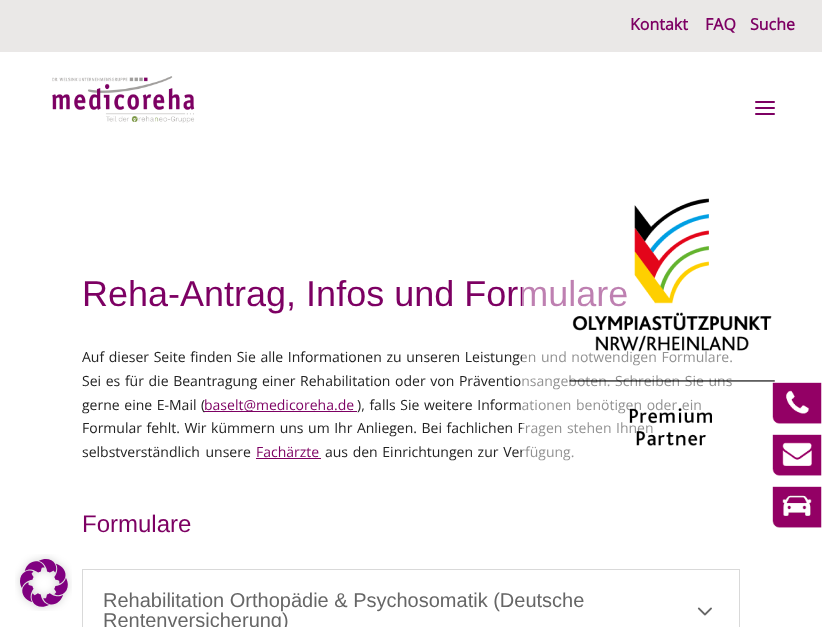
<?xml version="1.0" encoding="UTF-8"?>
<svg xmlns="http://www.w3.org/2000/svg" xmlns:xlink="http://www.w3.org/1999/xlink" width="822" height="627">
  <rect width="100%" height="100%" fill="#ffffff" />
  <image x="15" y="554" width="57" height="57" xlink:href="image1.png" />
  <rect width="822" height="52" fill="#eae8e7" />
  <image x="52" y="76" width="143" height="47" xlink:href="image2.png" />
  <image x="755" y="101" width="20" height="14" xlink:href="image3.png" />
  <rect x="204" y="411" width="153" height="1" fill="#7d0063" />
  <rect x="256" y="458" width="65" height="1" fill="#7d0063" />
  <rect x="82.5" y="569.5" width="657" height="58" fill="none" stroke="#d9d9d9" />
  <image x="697" y="607" width="15" height="9" xlink:href="image5.png" />
  <image x="772" y="486" width="50" height="42" xlink:href="image8.png" />
  <text x="630" y="30" style="font-family: Open Sans; font-size: 16px; font-weight: bold; fill: #7d0063">Kontakt</text>
  <text x="705" y="30" style="font-family: Open Sans; font-size: 16px; font-weight: bold; fill: #7d0063">FAQ</text>
  <text x="750" y="30" style="font-family: Open Sans; font-size: 16px; font-weight: bold; fill: #7d0063">Suche</text>
  <text x="82" y="306" style="font-family: Liberation Sans; font-size: 36px; fill: #7d0063">Reha-Antrag, Infos und Formulare</text>
  <text x="82" y="362" word-spacing="1" style="font-family: Open Sans; font-size: 14px; fill: #222222">Auf dieser Seite finden Sie alle Informationen zu unseren Leistungen und notwendigen Formulare.</text>
  <text x="82" y="386" word-spacing="1" style="font-family: Open Sans; font-size: 14px; fill: #222222">Sei es für die Beantragung einer Rehabilitation oder von Präventionsangeboten. Schreiben Sie uns</text>
  <text x="82" y="410" word-spacing="1" style="font-family: Open Sans; font-size: 14px; fill: #222222">gerne eine E-Mail (</text>
  <text x="204" y="410" style="font-family: Open Sans; font-size: 14px; fill: #7d0063">baselt@medicoreha.de</text>
  <text x="357" y="410" word-spacing="1" style="font-family: Open Sans; font-size: 14px; fill: #222222">), falls Sie weitere Informationen benötigen oder ein</text>
  <text x="82" y="433" word-spacing="0.9" style="font-family: Open Sans; font-size: 14px; fill: #222222">Formular fehlt. Wir kümmern uns um Ihr Anliegen. Bei fachlichen Fragen stehen Ihnen</text>
  <text x="82" y="457" word-spacing="2" style="font-family: Open Sans; font-size: 14px; fill: #222222">selbstverständlich unsere</text>
  <text x="256" y="457" style="font-family: Open Sans; font-size: 14px; fill: #7d0063">Fachärzte</text>
  <text x="325" y="457" word-spacing="1" style="font-family: Open Sans; font-size: 14px; fill: #222222">aus den Einrichtungen zur Verfügung.</text>
  <image x="522" y="198" width="253" height="263" xlink:href="image4.png" />
  <text x="82" y="532" style="font-family: Liberation Sans; font-size: 24px; fill: #7d0063">Formulare</text>
  <text x="103" y="607" style="font-family: Liberation Sans; font-size: 20px; fill: #666666">Rehabilitation Orthopädie &amp; Psychosomatik (Deutsche</text>
  <text x="103" y="627" style="font-family: Liberation Sans; font-size: 20px; fill: #666666">Rentenversicherung)</text>
  <image x="772" y="382" width="50" height="42" xlink:href="image6.png" />
  <image x="772" y="434" width="50" height="42" xlink:href="image7.png" />
</svg>
